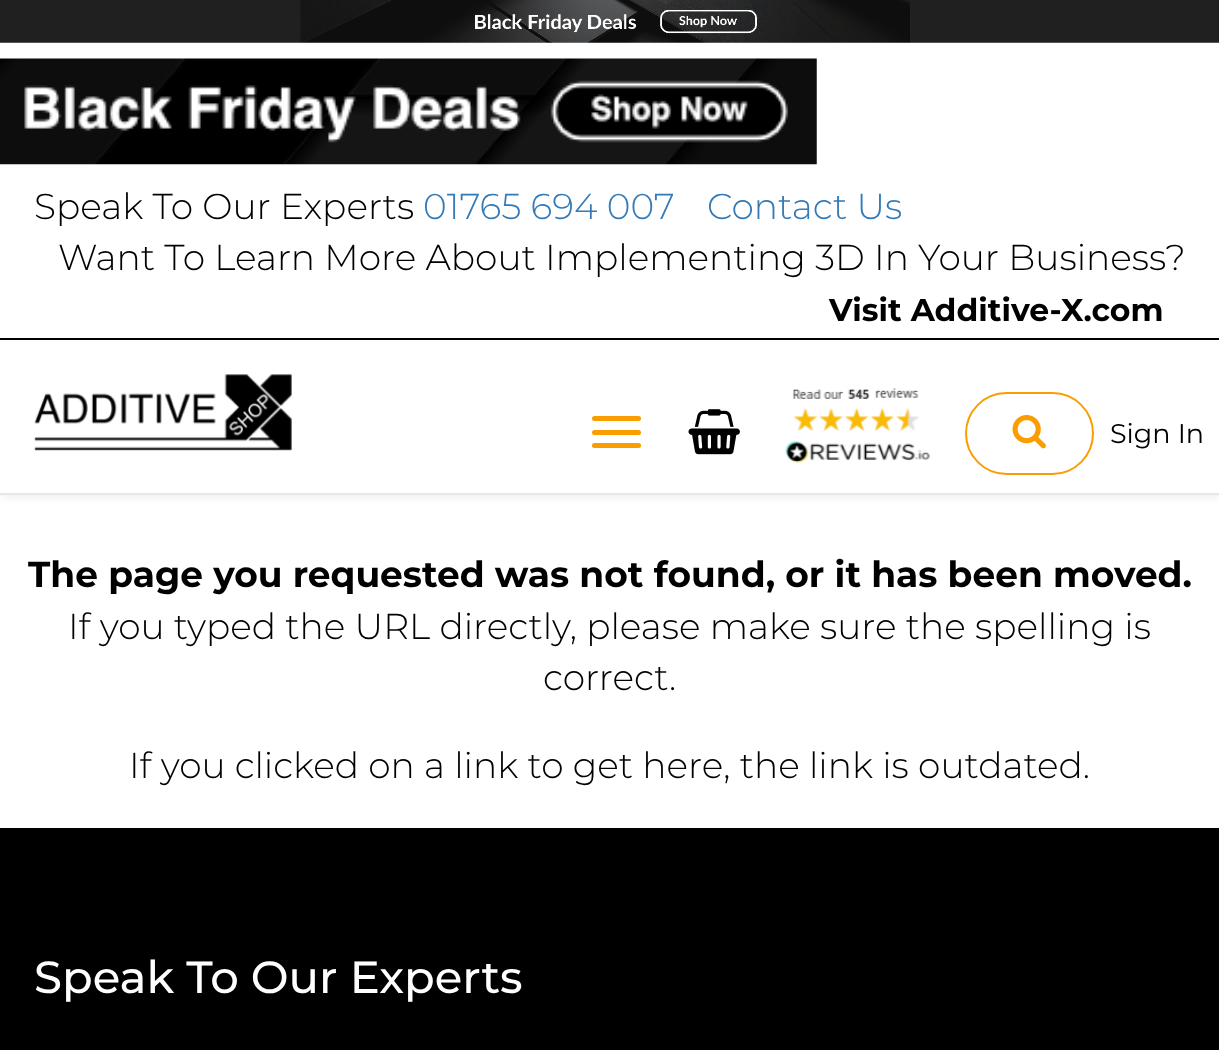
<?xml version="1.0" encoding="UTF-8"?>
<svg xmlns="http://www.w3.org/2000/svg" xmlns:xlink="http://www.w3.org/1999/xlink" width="1219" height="1050">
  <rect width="100%" height="100%" fill="#ffffff" />
  <rect x="2" width="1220" height="495" fill="#000000" fill-opacity="0.1" filter="blur(5.5px)" />
  <rect y="42" width="1219" height="451" fill="#ffffff" />
  <rect y="493" width="1219" height="2" fill="#e7e7e7" />
  <image x="0" y="0" width="1219" height="43" xlink:href="image1.png" />
  <image x="0" y="58" width="817" height="107" xlink:href="image2.png" />
  <rect y="338" width="1219" height="2" fill="#000000" />
  <image x="34" y="374" width="258" height="77" xlink:href="image3.png" />
  <rect x="592" y="416" width="49" height="5" rx="2.5" fill="#f99d00" />
  <rect x="592" y="430" width="49" height="5" rx="2.5" fill="#f99d00" />
  <rect x="592" y="443" width="49" height="5" rx="2.5" fill="#f99d00" />
  <image x="688" y="409" width="52" height="46" xlink:href="image4.png" />
  <image x="785" y="388" width="146" height="76" xlink:href="image5.png" />
  <rect x="966" y="393" width="127" height="81" rx="40.5" fill="none" stroke="#f99d00" stroke-width="2" />
  <image x="1012" y="415" width="34" height="34" xlink:href="image6.png" />
  <rect y="828" width="1219" height="222" fill="#000000" />
  <text x="34" y="219" style="font-family: Montserrat; font-size: 36px; font-weight: 300; fill: #000000">Speak To Our Experts</text>
  <text x="423" y="219" style="font-family: Montserrat; font-size: 36px; font-weight: 300; fill: #337ab7">01765 694 007</text>
  <text x="707" y="219" style="font-family: Montserrat; font-size: 36px; font-weight: 300; fill: #337ab7">Contact Us</text>
  <text x="58" y="270" style="font-family: Montserrat; font-size: 36px; font-weight: 300; fill: #000000">Want To Learn More About Implementing 3D In Your Business?</text>
  <text x="829" y="321" style="font-family: Montserrat; font-size: 31.5px; font-weight: bold; fill: #000000">Visit Additive-X.com</text>
  <text x="1110" y="443" style="font-family: Montserrat; font-size: 27px; fill: #000000">Sign In</text>
  <text x="28" y="587" style="font-family: Montserrat; font-size: 36px; font-weight: bold; fill: #000000">The page you requested was not found, or it has been moved.</text>
  <text x="68" y="639" style="font-family: Montserrat; font-size: 36px; font-weight: 300; fill: #000000">If you typed the URL directly, please make sure the spelling is</text>
  <text x="543" y="690" style="font-family: Montserrat; font-size: 36px; font-weight: 300; fill: #000000">correct.</text>
  <text x="129" y="778" style="font-family: Montserrat; font-size: 36px; font-weight: 300; fill: #000000">If you clicked on a link to get here, the link is outdated.</text>
  <text x="34" y="993" style="font-family: Montserrat; font-size: 45px; font-weight: 500; fill: #ffffff">Speak To Our Experts</text>
</svg>
